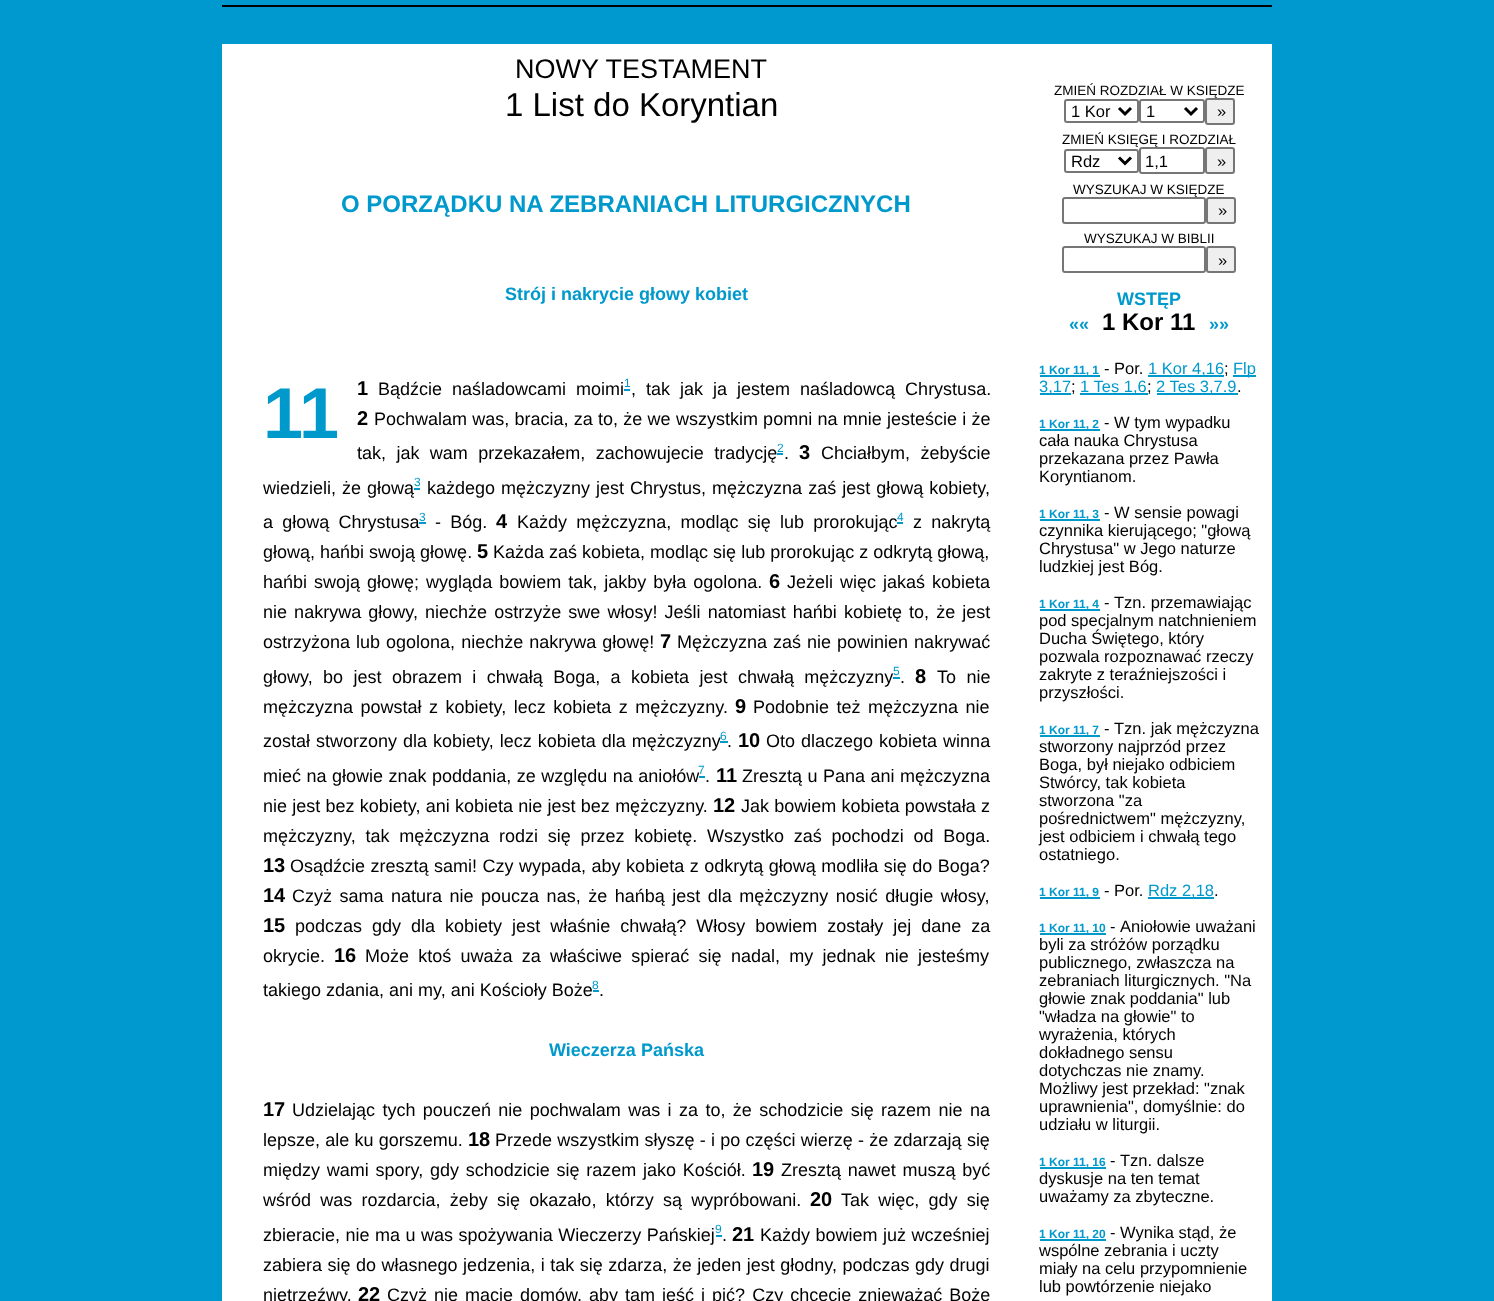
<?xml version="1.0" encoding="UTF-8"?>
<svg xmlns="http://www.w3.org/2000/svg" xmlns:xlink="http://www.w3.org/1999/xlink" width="1494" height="1301">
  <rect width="100%" height="100%" fill="#0099cf" />
  <rect x="222" y="5" width="1050" height="2" fill="#000000" />
  <rect x="222" y="44" width="1050" height="1257" fill="#ffffff" />
  <rect x="624" y="389" width="6" height="2" fill="#0099cc" />
  <rect x="777" y="453" width="6" height="2" fill="#0099cc" />
  <rect x="414" y="488" width="6" height="2" fill="#0099cc" />
  <rect x="419" y="522" width="7" height="2" fill="#0099cc" />
  <rect x="897" y="522" width="6" height="2" fill="#0099cc" />
  <rect x="893" y="677" width="7" height="2" fill="#0099cc" />
  <rect x="699" y="776" width="6" height="2" fill="#0099cc" />
  <rect x="593" y="990" width="6" height="2" fill="#0099cc" />
  <rect x="716" y="1235" width="6" height="2" fill="#0099cc" />
  <rect x="1065" y="100" width="73" height="22" rx="2" fill="none" stroke="#767676" stroke-width="2" />
  <path d="M 1119 108 l 6 6 l 6 -6" fill="none" stroke="#000000" stroke-width="3" />
  <rect x="1140" y="100" width="64" height="22" rx="2" fill="none" stroke="#767676" stroke-width="2" />
  <path d="M 1185 108 l 6 6 l 6 -6" fill="none" stroke="#000000" stroke-width="3" />
  <rect x="1206" y="99" width="28" height="25" rx="2" fill="#efefef" stroke="#767676" stroke-width="2" />
  <rect x="1065" y="150" width="73" height="22" rx="2" fill="none" stroke="#767676" stroke-width="2" />
  <path d="M 1119 157.5 l 6 6 l 6 -6" fill="none" stroke="#000000" stroke-width="3" />
  <rect x="1140" y="148" width="64" height="25" rx="2" fill="none" stroke="#767676" stroke-width="2" />
  <rect x="1206" y="148" width="28" height="25" rx="2" fill="#efefef" stroke="#767676" stroke-width="2" />
  <rect x="1063" y="198" width="142" height="25" rx="2" fill="none" stroke="#767676" stroke-width="2" />
  <rect x="1207" y="198" width="28" height="25" rx="2" fill="#efefef" stroke="#767676" stroke-width="2" />
  <rect x="1063" y="247" width="142" height="25" rx="2" fill="none" stroke="#767676" stroke-width="2" />
  <rect x="1207" y="247" width="28" height="25" rx="2" fill="#efefef" stroke="#767676" stroke-width="2" />
  <rect x="1040" y="375" width="60" height="2" fill="#0099cc" />
  <rect x="1148" y="375" width="76" height="2" fill="#0099cc" />
  <rect x="1233" y="375" width="23" height="2" fill="#0099cc" />
  <rect x="1040" y="393" width="31" height="2" fill="#0099cc" />
  <rect x="1080" y="393" width="68" height="2" fill="#0099cc" />
  <rect x="1157" y="393" width="81" height="2" fill="#0099cc" />
  <rect x="1040" y="429" width="60" height="2" fill="#0099cc" />
  <rect x="1040" y="519" width="60" height="2" fill="#0099cc" />
  <rect x="1040" y="609" width="60" height="2" fill="#0099cc" />
  <rect x="1040" y="735" width="60" height="2" fill="#0099cc" />
  <rect x="1040" y="897" width="60" height="2" fill="#0099cc" />
  <rect x="1148" y="897" width="66" height="2" fill="#0099cc" />
  <rect x="1040" y="933" width="66" height="2" fill="#0099cc" />
  <rect x="1040" y="1167" width="66" height="2" fill="#0099cc" />
  <rect x="1040" y="1239" width="66" height="2" fill="#0099cc" />
  <text x="515" y="78" style="font-family: Liberation Sans; font-size: 27px; fill: #000000">NOWY TESTAMENT</text>
  <text x="505" y="116" style="font-family: Liberation Sans; font-size: 33px; fill: #000000">1 List do Koryntian</text>
  <text x="341" y="212" style="font-family: Liberation Sans; font-size: 24px; font-weight: bold; fill: #0099cc">O PORZĄDKU NA ZEBRANIACH LITURGICZNYCH</text>
  <text x="505" y="300" style="font-family: Liberation Sans; font-size: 18px; font-weight: bold; fill: #0099cc">Strój i nakrycie głowy kobiet</text>
  <text x="263" y="438" style="font-family: Liberation Sans; font-size: 72px; font-weight: bold; fill: #0099cc">11</text>
  <text x="357" y="395" style="font-family: Liberation Sans; font-size: 20px; font-weight: bold; fill: #000000">1</text>
  <text x="378" y="395" word-spacing="5" style="font-family: Liberation Sans; font-size: 18px; fill: #000000">Bądźcie naśladowcami moimi</text>
  <text x="624" y="387" style="font-family: Liberation Sans; font-size: 12px; fill: #0099cc">1</text>
  <text x="631" y="395" word-spacing="5" style="font-family: Liberation Sans; font-size: 18px; fill: #000000">, tak jak ja jestem naśladowcą Chrystusa.</text>
  <text x="357" y="425" style="font-family: Liberation Sans; font-size: 20px; font-weight: bold; fill: #000000">2</text>
  <text x="374" y="425" word-spacing="0.25" style="font-family: Liberation Sans; font-size: 18px; fill: #000000">Pochwalam was, bracia, za to, że we wszystkim pomni na mnie jesteście i że</text>
  <text x="357" y="459" word-spacing="5.4" style="font-family: Liberation Sans; font-size: 18px; fill: #000000">tak, jak wam przekazałem, zachowujecie tradycję</text>
  <text x="777" y="452" style="font-family: Liberation Sans; font-size: 12px; fill: #0099cc">2</text>
  <text x="784" y="459" style="font-family: Liberation Sans; font-size: 18px; fill: #000000">.</text>
  <text x="799" y="459" style="font-family: Liberation Sans; font-size: 20px; font-weight: bold; fill: #000000">3</text>
  <text x="821" y="459" word-spacing="5.4" style="font-family: Liberation Sans; font-size: 18px; fill: #000000">Chciałbym, żebyście</text>
  <text x="263" y="494" word-spacing="1" style="font-family: Liberation Sans; font-size: 18px; fill: #000000">wiedzieli, że głową</text>
  <text x="414" y="486" style="font-family: Liberation Sans; font-size: 12px; fill: #0099cc">3</text>
  <text x="427" y="494" word-spacing="1" style="font-family: Liberation Sans; font-size: 18px; fill: #000000">każdego mężczyzny jest Chrystus, mężczyzna zaś jest głową kobiety,</text>
  <text x="263" y="528" word-spacing="4.25" style="font-family: Liberation Sans; font-size: 18px; fill: #000000">a głową Chrystusa</text>
  <text x="419" y="521" style="font-family: Liberation Sans; font-size: 12px; fill: #0099cc">3</text>
  <text x="435" y="528" word-spacing="4.25" style="font-family: Liberation Sans; font-size: 18px; fill: #000000">- Bóg.</text>
  <text x="496" y="528" style="font-family: Liberation Sans; font-size: 20px; font-weight: bold; fill: #000000">4</text>
  <text x="517" y="528" word-spacing="4.25" style="font-family: Liberation Sans; font-size: 18px; fill: #000000">Każdy mężczyzna, modląc się lub prorokując</text>
  <text x="897" y="521" style="font-family: Liberation Sans; font-size: 12px; fill: #0099cc">4</text>
  <text x="913" y="528" word-spacing="4.25" style="font-family: Liberation Sans; font-size: 18px; fill: #000000">z nakrytą</text>
  <text x="263" y="558" style="font-family: Liberation Sans; font-size: 18px; fill: #000000">głową, hańbi swoją głowę.</text>
  <text x="477" y="558" style="font-family: Liberation Sans; font-size: 20px; font-weight: bold; fill: #000000">5</text>
  <text x="493" y="558" style="font-family: Liberation Sans; font-size: 18px; fill: #000000">Każda zaś kobieta, modląc się lub prorokując z odkrytą głową,</text>
  <text x="263" y="588" word-spacing="2" style="font-family: Liberation Sans; font-size: 18px; fill: #000000">hańbi swoją głowę; wygląda bowiem tak, jakby była ogolona.</text>
  <text x="769" y="588" style="font-family: Liberation Sans; font-size: 20px; font-weight: bold; fill: #000000">6</text>
  <text x="787" y="588" word-spacing="2" style="font-family: Liberation Sans; font-size: 18px; fill: #000000">Jeżeli więc jakaś kobieta</text>
  <text x="263" y="618" word-spacing="2.1" style="font-family: Liberation Sans; font-size: 18px; fill: #000000">nie nakrywa głowy, niechże ostrzyże swe włosy! Jeśli natomiast hańbi kobietę to, że jest</text>
  <text x="263" y="648" word-spacing="1" style="font-family: Liberation Sans; font-size: 18px; fill: #000000">ostrzyżona lub ogolona, niechże nakrywa głowę!</text>
  <text x="660" y="648" style="font-family: Liberation Sans; font-size: 20px; font-weight: bold; fill: #000000">7</text>
  <text x="677" y="648" word-spacing="1" style="font-family: Liberation Sans; font-size: 18px; fill: #000000">Mężczyzna zaś nie powinien nakrywać</text>
  <text x="263" y="683" word-spacing="5.4" style="font-family: Liberation Sans; font-size: 18px; fill: #000000">głowy, bo jest obrazem i chwałą Boga, a kobieta jest chwałą mężczyzny</text>
  <text x="893" y="675" style="font-family: Liberation Sans; font-size: 12px; fill: #0099cc">5</text>
  <text x="900" y="683" style="font-family: Liberation Sans; font-size: 18px; fill: #000000">.</text>
  <text x="915" y="683" style="font-family: Liberation Sans; font-size: 20px; font-weight: bold; fill: #000000">8</text>
  <text x="937" y="683" word-spacing="5.4" style="font-family: Liberation Sans; font-size: 18px; fill: #000000">To nie</text>
  <text x="263" y="713" word-spacing="2.5" style="font-family: Liberation Sans; font-size: 18px; fill: #000000">mężczyzna powstał z kobiety, lecz kobieta z mężczyzny.</text>
  <text x="735" y="713" style="font-family: Liberation Sans; font-size: 20px; font-weight: bold; fill: #000000">9</text>
  <text x="753" y="713" word-spacing="2.5" style="font-family: Liberation Sans; font-size: 18px; fill: #000000">Podobnie też mężczyzna nie</text>
  <text x="263" y="747" word-spacing="1" style="font-family: Liberation Sans; font-size: 18px; fill: #000000">został stworzony dla kobiety, lecz kobieta dla mężczyzny</text>
  <text x="720" y="740" style="font-family: Liberation Sans; font-size: 12px; fill: #0099cc">6</text>
  <rect x="720" y="741" width="8" height="2" fill="#0099cc" />
  <text x="727" y="747" style="font-family: Liberation Sans; font-size: 18px; fill: #000000">.</text>
  <text x="738" y="747" style="font-family: Liberation Sans; font-size: 20px; font-weight: bold; fill: #000000">10</text>
  <text x="766" y="747" word-spacing="1" style="font-family: Liberation Sans; font-size: 18px; fill: #000000">Oto dlaczego kobieta winna</text>
  <text x="263" y="782" word-spacing="0.5" style="font-family: Liberation Sans; font-size: 18px; fill: #000000">mieć na głowie znak poddania, ze względu na aniołów</text>
  <text x="698" y="774" style="font-family: Liberation Sans; font-size: 12px; fill: #0099cc">7</text>
  <text x="705" y="782" style="font-family: Liberation Sans; font-size: 18px; fill: #000000">.</text>
  <text x="716" y="782" style="font-family: Liberation Sans; font-size: 20px; font-weight: bold; fill: #000000">11</text>
  <text x="742" y="782" word-spacing="0.5" style="font-family: Liberation Sans; font-size: 18px; fill: #000000">Zresztą u Pana ani mężczyzna</text>
  <text x="263" y="812" word-spacing="0.25" style="font-family: Liberation Sans; font-size: 18px; fill: #000000">nie jest bez kobiety, ani kobieta nie jest bez mężczyzny.</text>
  <text x="713" y="812" style="font-family: Liberation Sans; font-size: 20px; font-weight: bold; fill: #000000">12</text>
  <text x="741" y="812" word-spacing="0.25" style="font-family: Liberation Sans; font-size: 18px; fill: #000000">Jak bowiem kobieta powstała z</text>
  <text x="263" y="842" word-spacing="4.75" style="font-family: Liberation Sans; font-size: 18px; fill: #000000">mężczyzny, tak mężczyzna rodzi się przez kobietę. Wszystko zaś pochodzi od Boga.</text>
  <text x="263" y="872" style="font-family: Liberation Sans; font-size: 20px; font-weight: bold; fill: #000000">13</text>
  <text x="290" y="872" word-spacing="0.5" style="font-family: Liberation Sans; font-size: 18px; fill: #000000">Osądźcie zresztą sami! Czy wypada, aby kobieta z odkrytą głową modliła się do Boga?</text>
  <text x="263" y="902" style="font-family: Liberation Sans; font-size: 20px; font-weight: bold; fill: #000000">14</text>
  <text x="292" y="902" word-spacing="2.5" style="font-family: Liberation Sans; font-size: 18px; fill: #000000">Czyż sama natura nie poucza nas, że hańbą jest dla mężczyzny nosić długie włosy,</text>
  <text x="263" y="932" style="font-family: Liberation Sans; font-size: 20px; font-weight: bold; fill: #000000">15</text>
  <text x="295" y="932" word-spacing="5" style="font-family: Liberation Sans; font-size: 18px; fill: #000000">podczas gdy dla kobiety jest właśnie chwałą? Włosy bowiem zostały jej dane za</text>
  <text x="263" y="962" style="font-family: Liberation Sans; font-size: 18px; fill: #000000">okrycie.</text>
  <text x="334" y="962" style="font-family: Liberation Sans; font-size: 20px; font-weight: bold; fill: #000000">16</text>
  <text x="365" y="962" word-spacing="4.25" style="font-family: Liberation Sans; font-size: 18px; fill: #000000">Może ktoś uważa za właściwe spierać się nadal, my jednak nie jesteśmy</text>
  <text x="263" y="996" style="font-family: Liberation Sans; font-size: 18px; fill: #000000">takiego zdania, ani my, ani Kościoły Boże</text>
  <text x="592" y="989" style="font-family: Liberation Sans; font-size: 12px; fill: #0099cc">8</text>
  <text x="599" y="996" style="font-family: Liberation Sans; font-size: 18px; fill: #000000">.</text>
  <text x="549" y="1056" style="font-family: Liberation Sans; font-size: 18px; font-weight: bold; fill: #0099cc">Wieczerza Pańska</text>
  <text x="263" y="1116" style="font-family: Liberation Sans; font-size: 20px; font-weight: bold; fill: #000000">17</text>
  <text x="292" y="1116" word-spacing="2.4" style="font-family: Liberation Sans; font-size: 18px; fill: #000000">Udzielając tych pouczeń nie pochwalam was i za to, że schodzicie się razem nie na</text>
  <text x="263" y="1146" word-spacing="0.25" style="font-family: Liberation Sans; font-size: 18px; fill: #000000">lepsze, ale ku gorszemu.</text>
  <text x="468" y="1146" style="font-family: Liberation Sans; font-size: 20px; font-weight: bold; fill: #000000">18</text>
  <text x="495" y="1146" word-spacing="0.25" style="font-family: Liberation Sans; font-size: 18px; fill: #000000">Przede wszystkim słyszę - i po części wierzę - że zdarzają się</text>
  <text x="263" y="1176" word-spacing="1.75" style="font-family: Liberation Sans; font-size: 18px; fill: #000000">między wami spory, gdy schodzicie się razem jako Kościół.</text>
  <text x="752" y="1176" style="font-family: Liberation Sans; font-size: 20px; font-weight: bold; fill: #000000">19</text>
  <text x="781" y="1176" word-spacing="1.75" style="font-family: Liberation Sans; font-size: 18px; fill: #000000">Zresztą nawet muszą być</text>
  <text x="263" y="1206" word-spacing="4.25" style="font-family: Liberation Sans; font-size: 18px; fill: #000000">wśród was rozdarcia, żeby się okazało, którzy są wypróbowani.</text>
  <text x="810" y="1206" style="font-family: Liberation Sans; font-size: 20px; font-weight: bold; fill: #000000">20</text>
  <text x="841" y="1206" word-spacing="4.25" style="font-family: Liberation Sans; font-size: 18px; fill: #000000">Tak więc, gdy się</text>
  <text x="263" y="1241" word-spacing="0.5" style="font-family: Liberation Sans; font-size: 18px; fill: #000000">zbieracie, nie ma u was spożywania Wieczerzy Pańskiej</text>
  <text x="715" y="1233" style="font-family: Liberation Sans; font-size: 12px; fill: #0099cc">9</text>
  <text x="722" y="1241" style="font-family: Liberation Sans; font-size: 18px; fill: #000000">.</text>
  <text x="732" y="1241" style="font-family: Liberation Sans; font-size: 20px; font-weight: bold; fill: #000000">21</text>
  <text x="760" y="1241" word-spacing="0.5" style="font-family: Liberation Sans; font-size: 18px; fill: #000000">Każdy bowiem już wcześniej</text>
  <text x="263" y="1271" word-spacing="0.5" style="font-family: Liberation Sans; font-size: 18px; fill: #000000">zabiera się do własnego jedzenia, i tak się zdarza, że jeden jest głodny, podczas gdy drugi</text>
  <text x="263" y="1301" style="font-family: Liberation Sans; font-size: 18px; fill: #000000">nietrzeźwy.</text>
  <text x="358" y="1301" style="font-family: Liberation Sans; font-size: 20px; font-weight: bold; fill: #000000">22</text>
  <text x="387" y="1301" word-spacing="2" style="font-family: Liberation Sans; font-size: 18px; fill: #000000">Czyż nie macie domów, aby tam jeść i pić? Czy chcecie znieważać Boże</text>
  <text x="1054" y="95" style="font-family: Liberation Sans; font-size: 13.5px; fill: #000000">ZMIEŃ ROZDZIAŁ W KSIĘDZE</text>
  <text x="1071" y="117" style="font-family: Liberation Sans; font-size: 16.5px; fill: #000000">1 Kor</text>
  <text x="1146" y="117" style="font-family: Liberation Sans; font-size: 16.5px; fill: #000000">1</text>
  <text x="1217" y="117" style="font-family: Liberation Sans; font-size: 16.5px; fill: #000000">»</text>
  <text x="1062" y="144" style="font-family: Liberation Sans; font-size: 13.5px; fill: #000000">ZMIEŃ KSIĘGĘ I ROZDZIAŁ</text>
  <text x="1071" y="167" style="font-family: Liberation Sans; font-size: 16.5px; fill: #000000">Rdz</text>
  <text x="1145" y="167" style="font-family: Liberation Sans; font-size: 16.5px; fill: #000000">1,1</text>
  <text x="1217" y="167" style="font-family: Liberation Sans; font-size: 16.5px; fill: #000000">»</text>
  <text x="1073" y="194" style="font-family: Liberation Sans; font-size: 13.5px; fill: #000000">WYSZUKAJ W KSIĘDZE</text>
  <text x="1218" y="216" style="font-family: Liberation Sans; font-size: 16.5px; fill: #000000">»</text>
  <text x="1084" y="243" style="font-family: Liberation Sans; font-size: 13.5px; fill: #000000">WYSZUKAJ W BIBLII</text>
  <text x="1218" y="266" style="font-family: Liberation Sans; font-size: 16.5px; fill: #000000">»</text>
  <text x="1117" y="305" style="font-family: Liberation Sans; font-size: 18px; font-weight: bold; fill: #0099cc">WSTĘP</text>
  <text x="1069" y="330" style="font-family: Liberation Sans; font-size: 18px; font-weight: bold; fill: #0099cc">««</text>
  <text x="1102" y="330" style="font-family: Liberation Sans; font-size: 24px; font-weight: bold; fill: #000000">1 Kor 11</text>
  <text x="1209" y="330" style="font-family: Liberation Sans; font-size: 18px; font-weight: bold; fill: #0099cc">»»</text>
  <text x="1039" y="374" style="font-family: Liberation Sans; font-size: 12px; font-weight: bold; fill: #0099cc">1 Kor 11, 1</text>
  <text x="1104" y="374" style="font-family: Liberation Sans; font-size: 16.5px; fill: #000000">- Por.</text>
  <text x="1148" y="374" style="font-family: Liberation Sans; font-size: 16.5px; fill: #0099cc">1 Kor 4,16</text>
  <text x="1224" y="374" style="font-family: Liberation Sans; font-size: 16.5px; fill: #000000">;</text>
  <text x="1233" y="374" style="font-family: Liberation Sans; font-size: 16.5px; fill: #0099cc">Flp</text>
  <text x="1039" y="392" style="font-family: Liberation Sans; font-size: 16.5px; fill: #0099cc">3,17</text>
  <text x="1071" y="392" style="font-family: Liberation Sans; font-size: 16.5px; fill: #000000">;</text>
  <text x="1080" y="392" style="font-family: Liberation Sans; font-size: 16.5px; fill: #0099cc">1 Tes 1,6</text>
  <text x="1147" y="392" style="font-family: Liberation Sans; font-size: 16.5px; fill: #000000">;</text>
  <text x="1156" y="392" style="font-family: Liberation Sans; font-size: 16.5px; fill: #0099cc">2 Tes 3,7.9</text>
  <text x="1237" y="392" style="font-family: Liberation Sans; font-size: 16.5px; fill: #000000">.</text>
  <text x="1039" y="428" style="font-family: Liberation Sans; font-size: 12px; font-weight: bold; fill: #0099cc">1 Kor 11, 2</text>
  <text x="1104" y="428" style="font-family: Liberation Sans; font-size: 16.5px; fill: #000000">- W tym wypadku</text>
  <text x="1039" y="446" style="font-family: Liberation Sans; font-size: 16.5px; fill: #000000">cała nauka Chrystusa</text>
  <text x="1039" y="464" style="font-family: Liberation Sans; font-size: 16.5px; fill: #000000">przekazana przez Pawła</text>
  <text x="1039" y="482" style="font-family: Liberation Sans; font-size: 16.5px; fill: #000000">Koryntianom.</text>
  <text x="1039" y="518" style="font-family: Liberation Sans; font-size: 12px; font-weight: bold; fill: #0099cc">1 Kor 11, 3</text>
  <text x="1104" y="518" style="font-family: Liberation Sans; font-size: 16.5px; fill: #000000">- W sensie powagi</text>
  <text x="1039" y="536" style="font-family: Liberation Sans; font-size: 16.5px; fill: #000000">czynnika kierującego; "głową</text>
  <text x="1039" y="554" style="font-family: Liberation Sans; font-size: 16.5px; fill: #000000">Chrystusa" w Jego naturze</text>
  <text x="1039" y="572" style="font-family: Liberation Sans; font-size: 16.5px; fill: #000000">ludzkiej jest Bóg.</text>
  <text x="1039" y="608" style="font-family: Liberation Sans; font-size: 12px; font-weight: bold; fill: #0099cc">1 Kor 11, 4</text>
  <text x="1104" y="608" style="font-family: Liberation Sans; font-size: 16.5px; fill: #000000">-</text>
  <text x="1114" y="608" style="font-family: Liberation Sans; font-size: 16.5px; fill: #000000">Tzn. przemawiając</text>
  <text x="1039" y="626" style="font-family: Liberation Sans; font-size: 16.5px; fill: #000000">pod specjalnym natchnieniem</text>
  <text x="1039" y="644" style="font-family: Liberation Sans; font-size: 16.5px; fill: #000000">Ducha Świętego, który</text>
  <text x="1039" y="662" style="font-family: Liberation Sans; font-size: 16.5px; fill: #000000">pozwala rozpoznawać rzeczy</text>
  <text x="1039" y="680" style="font-family: Liberation Sans; font-size: 16.5px; fill: #000000">zakryte z teraźniejszości i</text>
  <text x="1039" y="698" style="font-family: Liberation Sans; font-size: 16.5px; fill: #000000">przyszłości.</text>
  <text x="1039" y="734" style="font-family: Liberation Sans; font-size: 12px; font-weight: bold; fill: #0099cc">1 Kor 11, 7</text>
  <text x="1104" y="734" style="font-family: Liberation Sans; font-size: 16.5px; fill: #000000">-</text>
  <text x="1114" y="734" style="font-family: Liberation Sans; font-size: 16.5px; fill: #000000">Tzn. jak mężczyzna</text>
  <text x="1039" y="752" style="font-family: Liberation Sans; font-size: 16.5px; fill: #000000">stworzony najprzód przez</text>
  <text x="1039" y="770" style="font-family: Liberation Sans; font-size: 16.5px; fill: #000000">Boga, był niejako odbiciem</text>
  <text x="1039" y="788" style="font-family: Liberation Sans; font-size: 16.5px; fill: #000000">Stwórcy, tak kobieta</text>
  <text x="1039" y="806" style="font-family: Liberation Sans; font-size: 16.5px; fill: #000000">stworzona "za</text>
  <text x="1039" y="824" style="font-family: Liberation Sans; font-size: 16.5px; fill: #000000">pośrednictwem" mężczyzny,</text>
  <text x="1039" y="842" style="font-family: Liberation Sans; font-size: 16.5px; fill: #000000">jest odbiciem i chwałą tego</text>
  <text x="1039" y="860" style="font-family: Liberation Sans; font-size: 16.5px; fill: #000000">ostatniego.</text>
  <text x="1039" y="896" style="font-family: Liberation Sans; font-size: 12px; font-weight: bold; fill: #0099cc">1 Kor 11, 9</text>
  <text x="1104" y="896" style="font-family: Liberation Sans; font-size: 16.5px; fill: #000000">- Por.</text>
  <text x="1148" y="896" style="font-family: Liberation Sans; font-size: 16.5px; fill: #0099cc">Rdz 2,18</text>
  <text x="1214" y="896" style="font-family: Liberation Sans; font-size: 16.5px; fill: #000000">.</text>
  <text x="1039" y="932" style="font-family: Liberation Sans; font-size: 12px; font-weight: bold; fill: #0099cc">1 Kor 11, 10</text>
  <text x="1110" y="932" style="font-family: Liberation Sans; font-size: 16.5px; fill: #000000">-</text>
  <text x="1120" y="932" style="font-family: Liberation Sans; font-size: 16.5px; fill: #000000">Aniołowie uważani</text>
  <text x="1039" y="950" style="font-family: Liberation Sans; font-size: 16.5px; fill: #000000">byli za stróżów porządku</text>
  <text x="1039" y="968" style="font-family: Liberation Sans; font-size: 16.5px; fill: #000000">publicznego, zwłaszcza na</text>
  <text x="1039" y="986" style="font-family: Liberation Sans; font-size: 16.5px; fill: #000000">zebraniach liturgicznych. "Na</text>
  <text x="1039" y="1004" style="font-family: Liberation Sans; font-size: 16.5px; fill: #000000">głowie znak poddania" lub</text>
  <text x="1039" y="1022" style="font-family: Liberation Sans; font-size: 16.5px; fill: #000000">"władza na głowie" to</text>
  <text x="1039" y="1040" style="font-family: Liberation Sans; font-size: 16.5px; fill: #000000">wyrażenia, których</text>
  <text x="1039" y="1058" style="font-family: Liberation Sans; font-size: 16.5px; fill: #000000">dokładnego sensu</text>
  <text x="1039" y="1076" style="font-family: Liberation Sans; font-size: 16.5px; fill: #000000">dotychczas nie znamy.</text>
  <text x="1039" y="1094" style="font-family: Liberation Sans; font-size: 16.5px; fill: #000000">Możliwy jest przekład: "znak</text>
  <text x="1039" y="1112" style="font-family: Liberation Sans; font-size: 16.5px; fill: #000000">uprawnienia", domyślnie: do</text>
  <text x="1039" y="1130" style="font-family: Liberation Sans; font-size: 16.5px; fill: #000000">udziału w liturgii.</text>
  <text x="1039" y="1166" style="font-family: Liberation Sans; font-size: 12px; font-weight: bold; fill: #0099cc">1 Kor 11, 16</text>
  <text x="1110" y="1166" style="font-family: Liberation Sans; font-size: 16.5px; fill: #000000">-</text>
  <text x="1120" y="1166" style="font-family: Liberation Sans; font-size: 16.5px; fill: #000000">Tzn. dalsze</text>
  <text x="1039" y="1184" style="font-family: Liberation Sans; font-size: 16.5px; fill: #000000">dyskusje na ten temat</text>
  <text x="1039" y="1202" style="font-family: Liberation Sans; font-size: 16.5px; fill: #000000">uważamy za zbyteczne.</text>
  <text x="1039" y="1238" style="font-family: Liberation Sans; font-size: 12px; font-weight: bold; fill: #0099cc">1 Kor 11, 20</text>
  <text x="1110" y="1238" style="font-family: Liberation Sans; font-size: 16.5px; fill: #000000">- Wynika stąd, że</text>
  <text x="1039" y="1256" style="font-family: Liberation Sans; font-size: 16.5px; fill: #000000">wspólne zebrania i uczty</text>
  <text x="1039" y="1274" style="font-family: Liberation Sans; font-size: 16.5px; fill: #000000">miały na celu przypomnienie</text>
  <text x="1039" y="1292" style="font-family: Liberation Sans; font-size: 16.5px; fill: #000000">lub powtórzenie niejako</text>
</svg>
